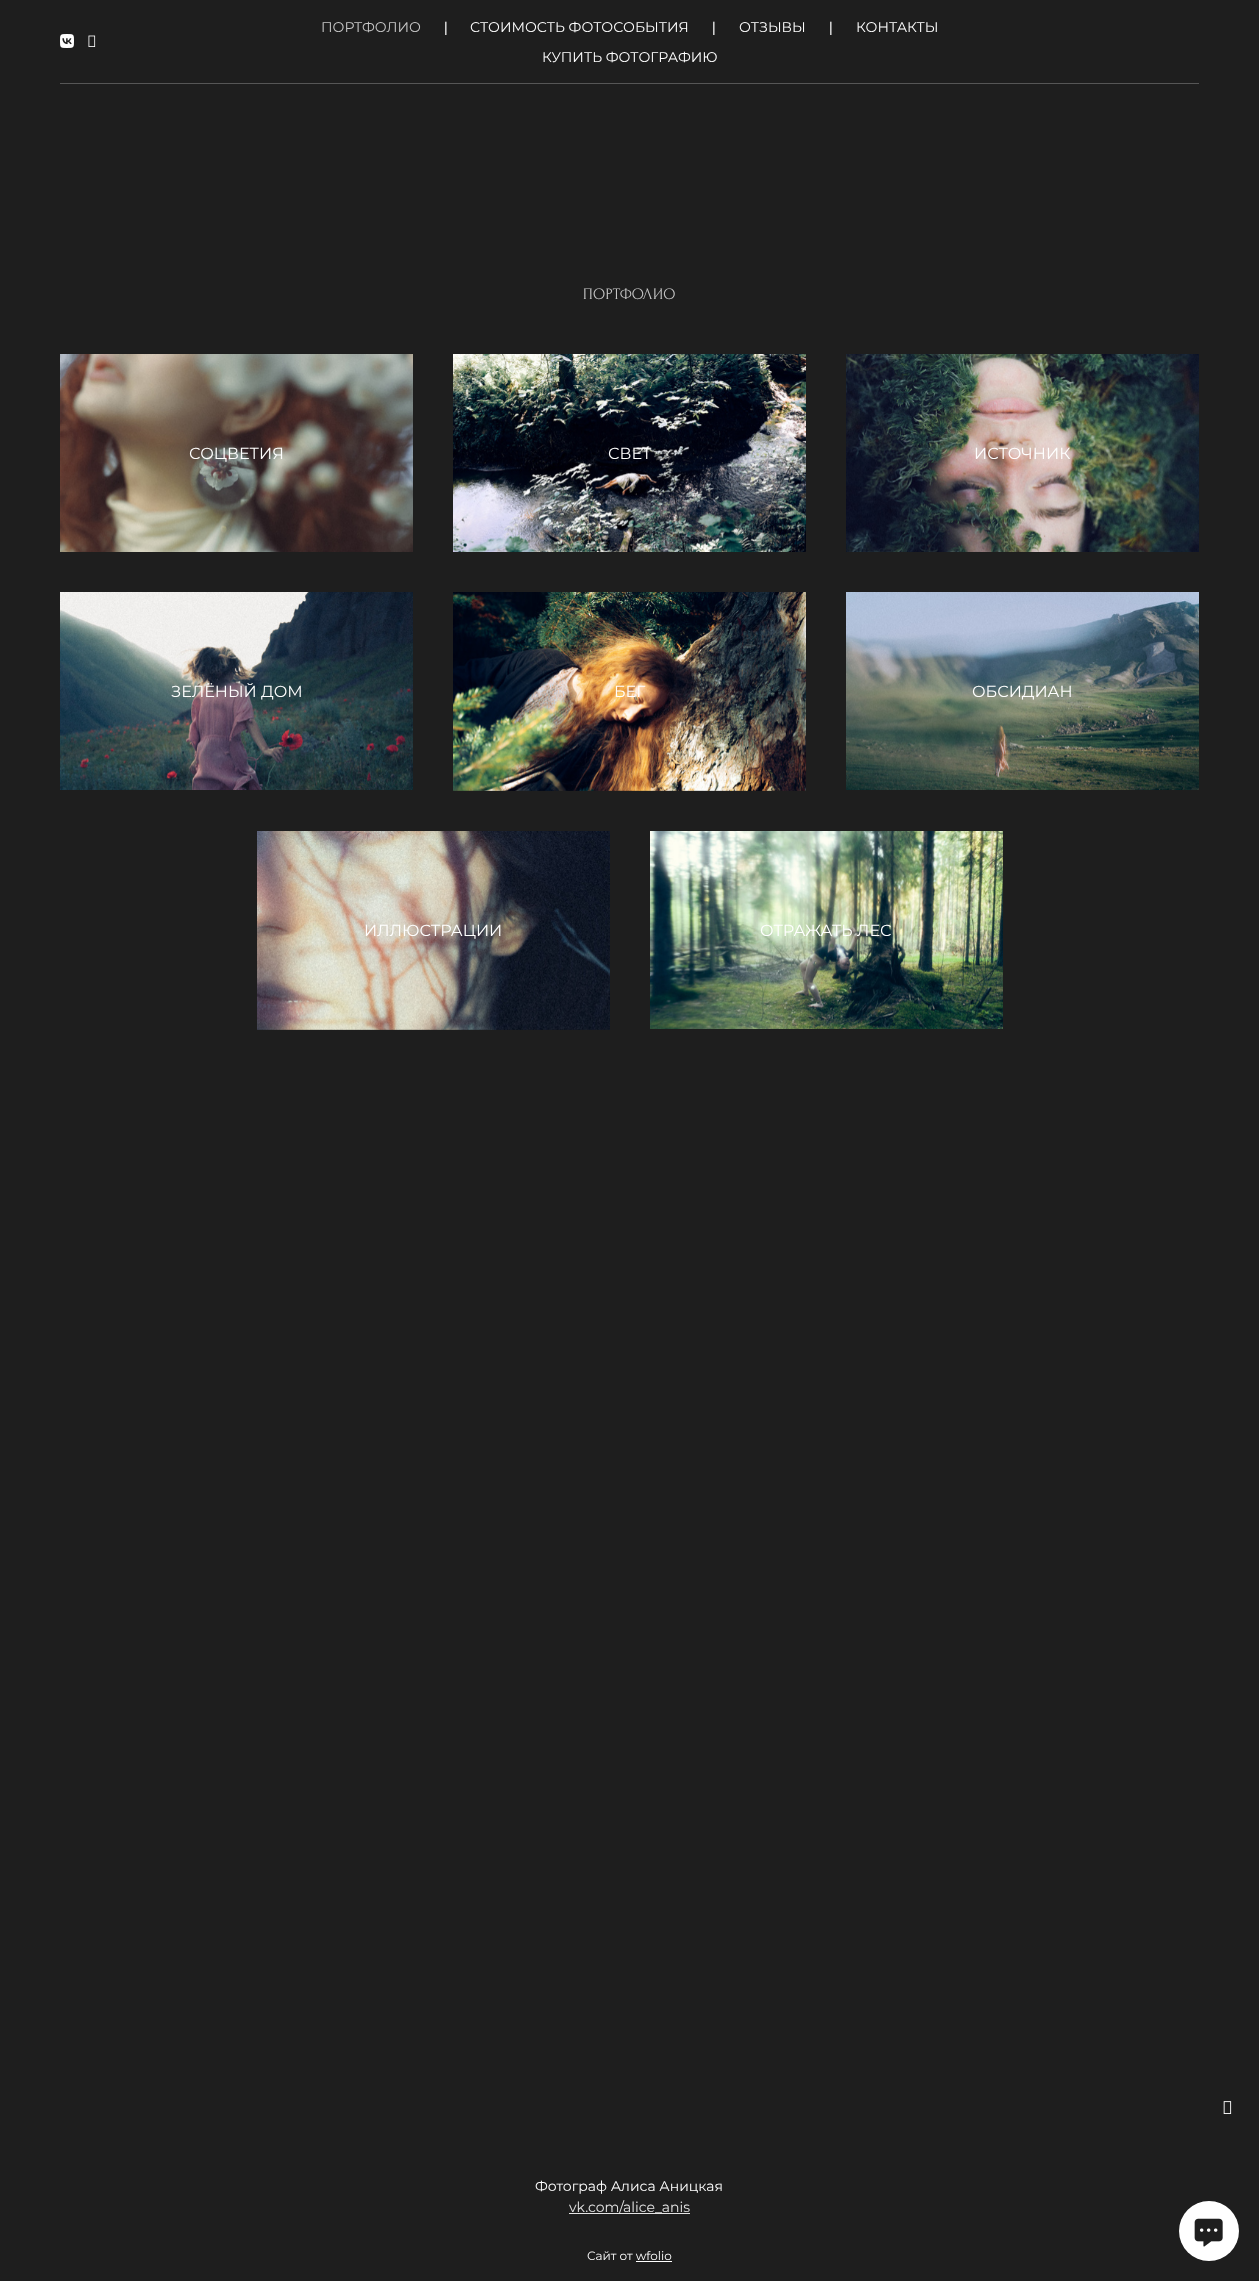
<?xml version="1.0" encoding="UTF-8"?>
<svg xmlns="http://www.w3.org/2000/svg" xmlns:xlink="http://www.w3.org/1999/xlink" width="1259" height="2281">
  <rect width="100%" height="100%" fill="#1e1e1e" />
  <image x="60" y="34" width="14" height="14" xlink:href="image1.png" />
  <image x="88" y="35" width="8" height="12" xlink:href="image2.png" />
  <rect x="60" y="83" width="1139" height="1" fill="#565656" />
  <image x="60" y="354" width="353" height="198" xlink:href="image3.png" />
  <image x="453" y="354" width="353" height="198" xlink:href="image4.png" />
  <image x="846" y="354" width="353" height="198" xlink:href="image5.png" />
  <image x="60" y="592" width="353" height="198" xlink:href="image6.png" />
  <image x="453" y="592" width="353" height="199" xlink:href="image7.png" />
  <image x="846" y="592" width="353" height="198" xlink:href="image8.png" />
  <image x="257" y="831" width="353" height="199" xlink:href="image9.png" />
  <image x="650" y="831" width="353" height="198" xlink:href="image10.png" />
  <rect x="569" y="2213" width="121" height="1" fill="#e4e4e4" />
  <rect x="636" y="2261" width="36" height="1" fill="#ffffff" />
  <image x="1223" y="2101" width="9" height="13" xlink:href="image11.png" />
  <circle cx="1209" cy="2231" r="30" fill="#ffffff" />
  <image x="1194" y="2218" width="29" height="29" xlink:href="image12.png" />
  <text x="321" y="32" style="font-family: Montserrat; font-size: 14px; fill: #c7c7c7">ПОРТФОЛИО</text>
  <text x="444" y="32" style="font-family: Liberation Sans; font-size: 14px; fill: #ffffff">|</text>
  <text x="470" y="32" style="font-family: Montserrat; font-size: 14px; fill: #ffffff">СТОИМОСТЬ ФОТОСОБЫТИЯ</text>
  <text x="712" y="32" style="font-family: Liberation Sans; font-size: 14px; fill: #ffffff">|</text>
  <text x="739" y="32" style="font-family: Montserrat; font-size: 14px; fill: #ffffff">ОТЗЫВЫ</text>
  <text x="829" y="32" style="font-family: Liberation Sans; font-size: 14px; fill: #ffffff">|</text>
  <text x="856" y="32" style="font-family: Montserrat; font-size: 14px; fill: #ffffff">КОНТАКТЫ</text>
  <text x="542" y="62" style="font-family: Montserrat; font-size: 14px; fill: #ffffff">КУПИТЬ ФОТОГРАФИЮ</text>
  <text x="583" y="299" style="font-family: Forum; font-size: 16px; letter-spacing: 0.25px; fill: #c7c7c7">ПОРТФОЛИО</text>
  <text x="189" y="459" style="font-family: Montserrat; font-size: 16px; fill: #ffffff">СОЦВЕТИЯ</text>
  <text x="608" y="459" style="font-family: Montserrat; font-size: 16px; fill: #ffffff">СВЕТ</text>
  <text x="974" y="459" style="font-family: Montserrat; font-size: 16px; fill: #ffffff">ИСТОЧНИК</text>
  <text x="171" y="697" style="font-family: Montserrat; font-size: 16px; fill: #ffffff">ЗЕЛЁНЫЙ ДОМ</text>
  <text x="614" y="697" style="font-family: Montserrat; font-size: 16px; fill: #ffffff">БЕГ</text>
  <text x="972" y="697" style="font-family: Montserrat; font-size: 16px; fill: #ffffff">ОБСИДИАН</text>
  <text x="364" y="936" style="font-family: Montserrat; font-size: 16px; fill: #ffffff">ИЛЛЮСТРАЦИИ</text>
  <text x="760" y="936" style="font-family: Montserrat; font-size: 16px; fill: #ffffff">ОТРАЖАТЬ ЛЕС</text>
  <text x="535" y="2191" style="font-family: Montserrat; font-size: 14px; fill: #ffffff">Фотограф Алиса Аницкая</text>
  <text x="569" y="2212" style="font-family: Montserrat; font-size: 14px; fill: #e4e4e4">vk.com/alice_anis</text>
  <text x="587" y="2260" style="font-family: Montserrat; font-size: 12px; fill: #ffffff">Сайт от wfolio</text>
</svg>
